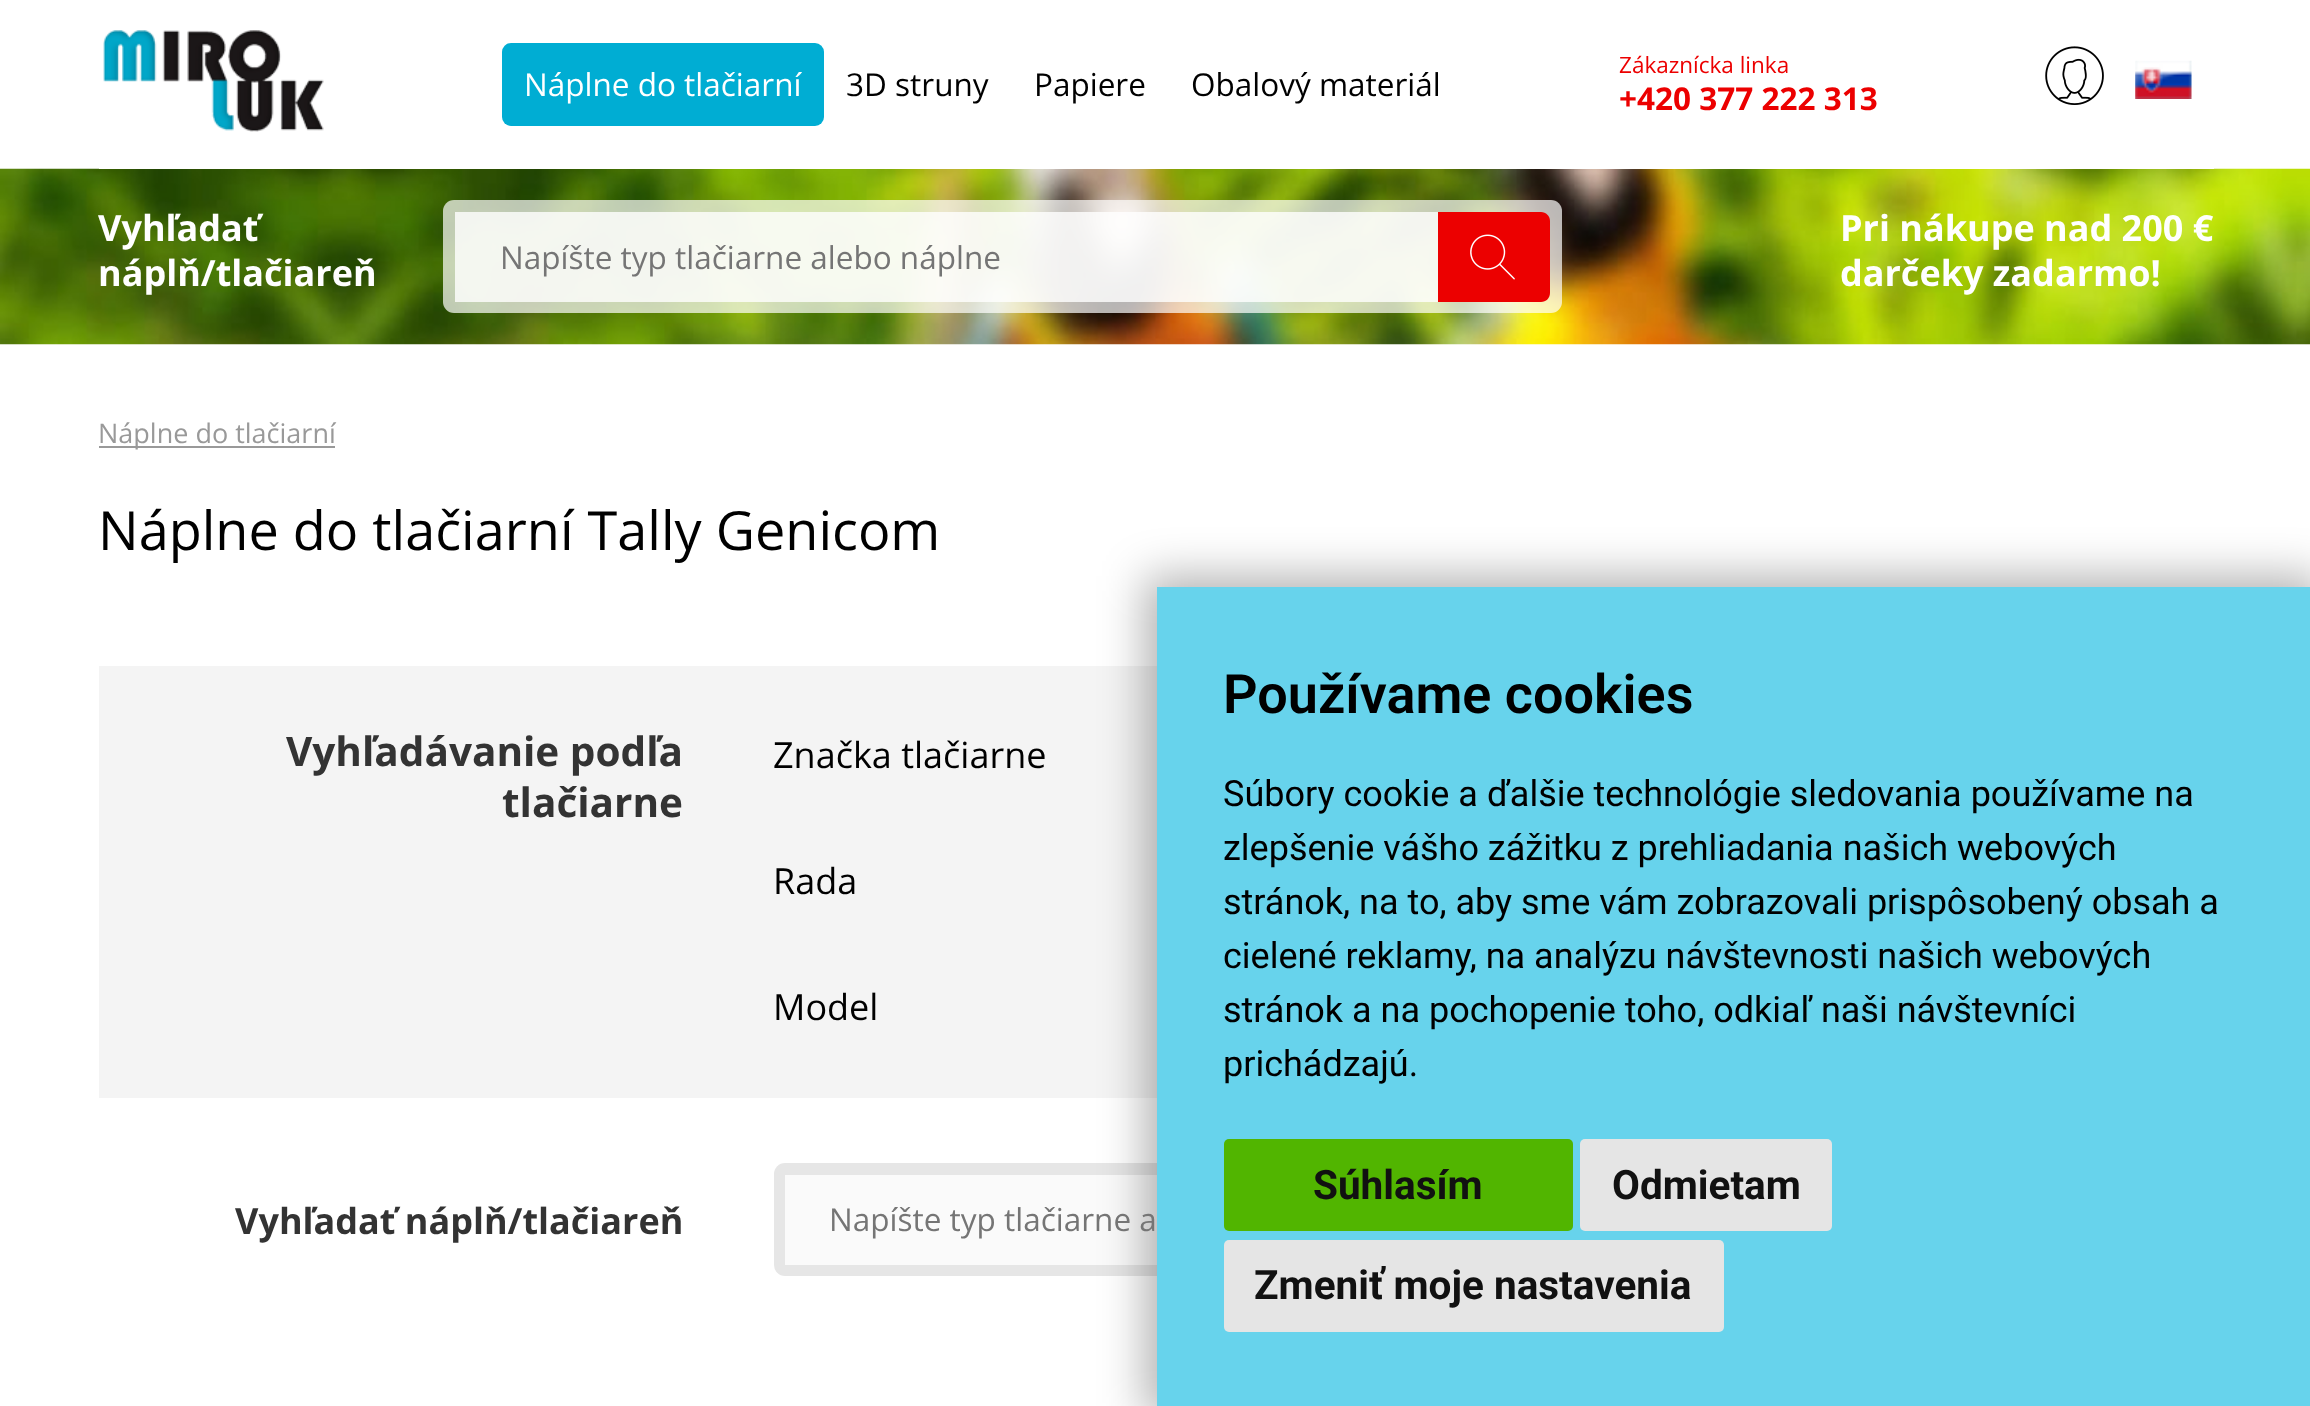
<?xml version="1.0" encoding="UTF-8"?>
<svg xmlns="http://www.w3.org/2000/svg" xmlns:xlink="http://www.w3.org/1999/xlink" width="2310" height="1406">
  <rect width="100%" height="100%" fill="#ffffff" />
  <image x="0" y="168" width="2310" height="177" xlink:href="image4.png" />
  <rect x="99" y="168" width="2115" height="1" fill="#ffffff" />
  <image x="103" y="30" width="221" height="102" xlink:href="image1.png" />
  <rect x="502" y="43" width="322" height="83" rx="9" fill="#00add3" />
  <image x="2045" y="46" width="59" height="59" xlink:href="image2.png" />
  <image x="2135" y="60" width="57" height="39" xlink:href="image3.png" />
  <rect x="443" y="200" width="1119" height="113" rx="11" fill="#ffffff" fill-opacity="0.7" />
  <rect x="455" y="212" width="983" height="90" fill="#ffffff" fill-opacity="0.8" />
  <path d="M 1438 212 h 103 c 5 0 9 4 9 9 v 72 c 0 5 -4 9 -9 9 h -103 z" fill="#ec0000" />
  <image x="1470" y="234" width="45" height="46" xlink:href="image5.png" />
  <rect x="99" y="446" width="236" height="2" fill="#999999" />
  <rect x="99" y="666" width="1058" height="432" fill="#f4f4f4" />
  <rect x="774" y="1163" width="1125" height="113" rx="11" fill="#e6e6e6" />
  <rect x="785" y="1175" width="372" height="90" fill="#fafafa" />
  <rect x="1145" y="576" width="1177" height="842" fill="#000000" fill-opacity="0.3" filter="blur(22.5px)" />
  <rect x="1157" y="587" width="1153" height="819" fill="#67d3ec" />
  <rect x="1224" y="1139" width="349" height="92" rx="5" fill="#51b500" />
  <rect x="1580" y="1139" width="252" height="92" rx="5" fill="#e5e5e5" />
  <rect x="1224" y="1240" width="500" height="92" rx="5" fill="#e5e5e5" />
  <text x="524" y="96" style="font-family: Open Sans; font-size: 31.5px; fill: #ffffff">Náplne do tlačiarní</text>
  <text x="846" y="96" style="font-family: Open Sans; font-size: 31.5px; fill: #000000">3D struny</text>
  <text x="1034" y="96" style="font-family: Open Sans; font-size: 31.5px; fill: #000000">Papiere</text>
  <text x="1191" y="96" style="font-family: Open Sans; font-size: 31.5px; fill: #000000">Obalový materiál</text>
  <text x="1619" y="73" style="font-family: Open Sans; font-size: 22.5px; fill: #ec0000">Zákaznícka linka</text>
  <text x="1619" y="110" style="font-family: Open Sans; font-size: 31.5px; font-weight: bold; fill: #ec0000">+420 377 222 313</text>
  <text x="98" y="241" style="font-family: Open Sans; font-size: 36px; font-weight: bold; fill: #ffffff">Vyhľadať</text>
  <text x="98" y="286" style="font-family: Open Sans; font-size: 36px; font-weight: bold; fill: #ffffff">náplň/tlačiareň</text>
  <text x="500" y="269" style="font-family: Open Sans; font-size: 31.5px; fill: #757575">Napíšte typ tlačiarne alebo náplne</text>
  <text x="1840" y="241" style="font-family: Open Sans; font-size: 36px; font-weight: bold; fill: #ffffff">Pri nákupe nad 200 €</text>
  <text x="1840" y="286" style="font-family: Open Sans; font-size: 36px; font-weight: bold; fill: #ffffff">darčeky zadarmo!</text>
  <text x="98" y="443" style="font-family: Open Sans; font-size: 27px; fill: #999999">Náplne do tlačiarní</text>
  <text x="98" y="550" style="font-family: Open Sans; font-size: 54px; fill: #000000">Náplne do tlačiarní Tally Genicom</text>
  <text x="286" y="766" style="font-family: Open Sans; font-size: 40.5px; font-weight: bold; fill: #333333">Vyhľadávanie podľa</text>
  <text x="502" y="817" style="font-family: Open Sans; font-size: 40.5px; font-weight: bold; fill: #333333">tlačiarne</text>
  <text x="773" y="768" style="font-family: Open Sans; font-size: 36px; fill: #000000">Značka tlačiarne</text>
  <text x="773" y="894" style="font-family: Open Sans; font-size: 36px; fill: #000000">Rada</text>
  <text x="773" y="1020" style="font-family: Open Sans; font-size: 36px; fill: #000000">Model</text>
  <text x="1223" y="713" style="font-family: Roboto; font-size: 54px; font-weight: 600; fill: #000000">Používame cookies</text>
  <text x="1223" y="806" style="font-family: Roboto; font-size: 36px; fill: #000000">Súbory cookie a ďalšie technológie sledovania používame na</text>
  <text x="1223" y="860" style="font-family: Roboto; font-size: 36px; fill: #000000">zlepšenie vášho zážitku z prehliadania našich webových</text>
  <text x="1223" y="914" style="font-family: Roboto; font-size: 36px; fill: #000000">stránok, na to, aby sme vám zobrazovali prispôsobený obsah a</text>
  <text x="1223" y="968" style="font-family: Roboto; font-size: 36px; fill: #000000">cielené reklamy, na analýzu návštevnosti našich webových</text>
  <text x="1223" y="1022" style="font-family: Roboto; font-size: 36px; fill: #000000">stránok a na pochopenie toho, odkiaľ naši návštevníci</text>
  <text x="1223" y="1076" style="font-family: Roboto; font-size: 36px; fill: #000000">prichádzajú.</text>
  <text x="1313" y="1199" style="font-family: Roboto; font-size: 40.5px; font-weight: bold; fill: #111111">Súhlasím</text>
  <text x="1612" y="1199" style="font-family: Roboto; font-size: 40.5px; font-weight: bold; fill: #111111">Odmietam</text>
  <text x="1254" y="1299" style="font-family: Roboto; font-size: 40.5px; font-weight: bold; fill: #111111">Zmeniť moje nastavenia</text>
  <text x="235" y="1234" style="font-family: Open Sans; font-size: 36px; font-weight: bold; fill: #333333">Vyhľadať náplň/tlačiareň</text>
  <text x="829" y="1231" style="font-family: Open Sans; font-size: 31.5px; fill: #757575">Napíšte typ tlačiarne a</text>
</svg>
